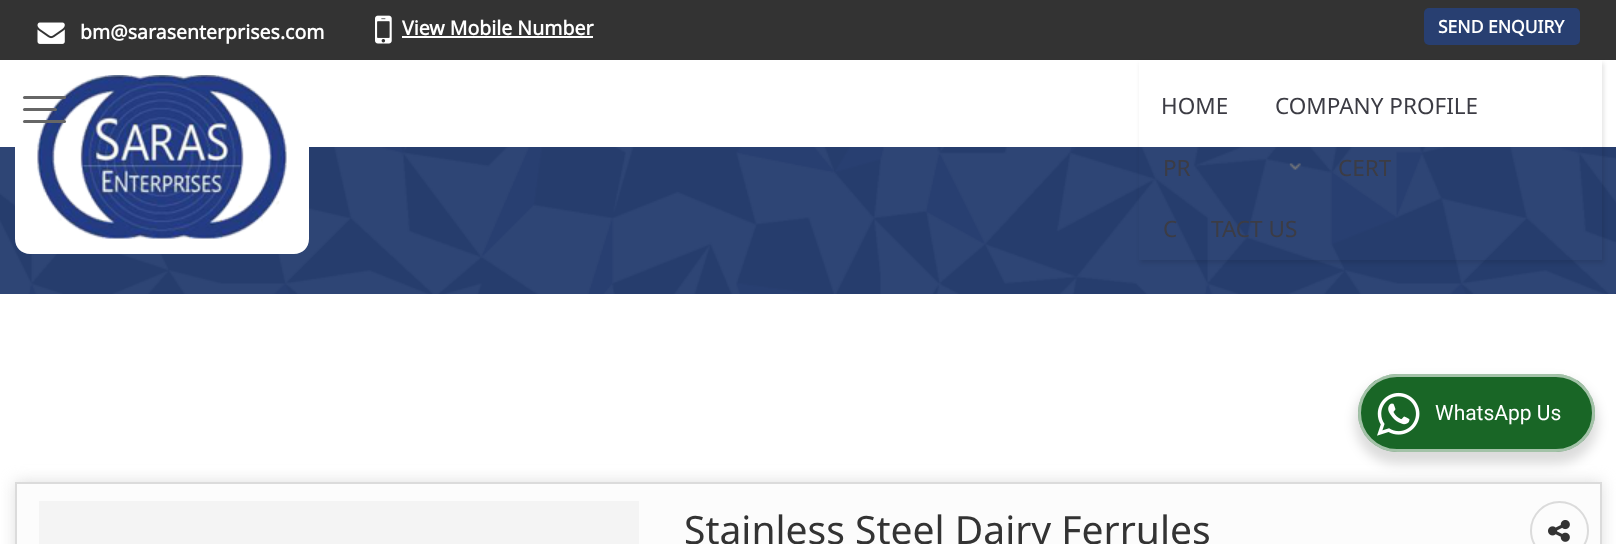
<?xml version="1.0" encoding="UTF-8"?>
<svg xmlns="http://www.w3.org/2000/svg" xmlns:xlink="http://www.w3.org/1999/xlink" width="1616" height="544">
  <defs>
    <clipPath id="clip1"><path d="M 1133 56 h 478 v 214 h -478 z m 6 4 h 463 v 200 h -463 z" clip-rule="evenodd" /></clipPath>
  </defs>
  <rect width="100%" height="100%" fill="#ffffff" />
  <rect width="1616" height="60" fill="#333333" />
  <image x="37" y="22" width="28" height="22" xlink:href="image1.png" />
  <image x="375" y="15" width="17" height="29" xlink:href="image2.png" />
  <rect x="402" y="36" width="191" height="2" fill="#ffffff" />
  <rect x="1424" y="8" width="156" height="37" rx="5" fill="#283f71" />
  <rect y="147" width="1616" height="147" fill="#283f71" />
  <image x="0" y="147" width="1616" height="147" xlink:href="image5.png" />
  <path d="M 15 60 h 294 v 179 c 0 8.5 -6.5 15 -15 15 h -264 c -8.5 0 -15 -6.5 -15 -15 z" fill="#ffffff" />
  <image x="37" y="75" width="250" height="164" xlink:href="image3.png" />
  <g clip-path="url(#clip1)">
    <rect x="1140" y="63" width="464" height="200" fill="#000000" fill-opacity="0.1" filter="blur(2px)" />
  </g>
  <rect x="23" y="96" width="43" height="3" rx="1.5" fill="#666666" />
  <rect x="23" y="108" width="34" height="3" rx="1.5" fill="#666666" />
  <rect x="23" y="120" width="43" height="3" rx="1.5" fill="#666666" />
  <image x="1289" y="163" width="12" height="7" xlink:href="image4.png" />
  <rect x="15" y="482" width="1587" height="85" fill="#cccccc" fill-opacity="0.67" filter="blur(7.5px)" />
  <rect x="16" y="483" width="1585" height="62" fill="#fcfcfc" stroke="#dbdbdb" stroke-width="2" />
  <rect x="39" y="501" width="600" height="43" fill="#f4f4f4" />
  <circle cx="1559.5" cy="530.5" r="28.5" fill="none" stroke="#dbdbdb" stroke-width="2" />
  <image x="1548" y="520" width="22" height="22" xlink:href="image6.png" />
  <rect x="1355" y="380" width="243" height="84" rx="42" fill="#000000" fill-opacity="0.14" filter="blur(6px)" />
  <rect x="1358" y="374" width="237" height="78" rx="39" fill="#196626" />
  <rect x="1359.5" y="375.5" width="234" height="75" rx="37.5" fill="none" stroke="#ffffff" stroke-opacity="0.6" stroke-width="3" />
  <image x="1377" y="392" width="43" height="44" xlink:href="image7.png" />
  <text x="80" y="39" style="font-family: Noto Sans; font-size: 19.5px; font-weight: bold; fill: #ffffff">bm@sarasenterprises.com</text>
  <text x="402" y="35" style="font-family: Noto Sans; font-size: 19.5px; font-weight: bold; fill: #ffffff">View Mobile Number</text>
  <text x="1438" y="33" style="font-family: Noto Sans; font-size: 17.5px; font-weight: bold; fill: #ffffff">SEND ENQUIRY</text>
  <text x="1161" y="114" style="font-family: Noto Sans; font-size: 22.5px; fill: #3c3c44">HOME</text>
  <text x="1275" y="114" style="font-family: Noto Sans; font-size: 22.5px; fill: #3c3c44">COMPANY PROFILE</text>
  <text x="1163" y="176" style="font-family: Noto Sans; font-size: 22.5px; fill: #3c3c44">PR</text>
  <text x="1338" y="176" style="font-family: Noto Sans; font-size: 22.5px; fill: #3c3c44">CERT</text>
  <text x="1163" y="237" style="font-family: Noto Sans; font-size: 22.5px; fill: #3c3c44">C</text>
  <text x="1211" y="237" style="font-family: Noto Sans; font-size: 22.5px; fill: #3c3c44">TACT US</text>
  <text x="684" y="544" style="font-family: Noto Sans; font-size: 39px; fill: #333333">Stainless Steel Dairy Ferrules</text>
  <text x="1435" y="420" style="font-family: Roboto; font-size: 21px; fill: #ffffff">WhatsApp Us</text>
</svg>
